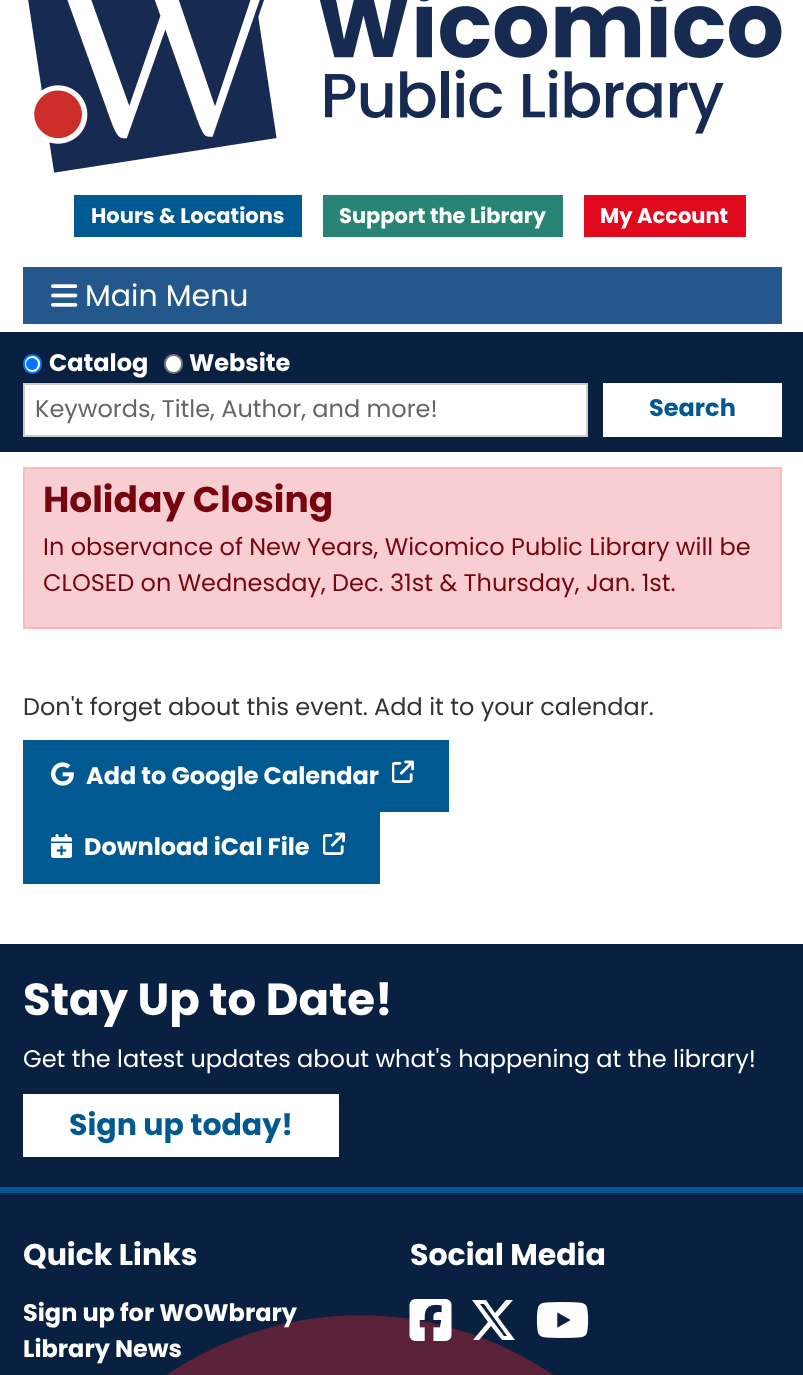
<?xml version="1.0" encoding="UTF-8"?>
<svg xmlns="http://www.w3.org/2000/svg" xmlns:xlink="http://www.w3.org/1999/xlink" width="803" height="1375">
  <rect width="100%" height="100%" fill="#ffffff" />
  <image x="28" y="0" width="754" height="173" xlink:href="image1.png" />
  <rect x="74" y="195" width="228" height="42" fill="#005990" />
  <rect x="323" y="195" width="240" height="42" fill="#288474" />
  <rect x="584" y="195" width="162" height="42" fill="#e1091d" />
  <rect x="23" y="267" width="759" height="57" fill="#24578b" />
  <image x="51" y="284" width="27" height="23" xlink:href="image2.png" />
  <rect y="332" width="803" height="120" fill="#092041" />
  <rect x="24" y="355" width="17" height="18" rx="8.5" fill="#ffffff" stroke="#0075ff" stroke-width="2" />
  <circle cx="32" cy="364" r="6" fill="#0075ff" />
  <rect x="165" y="355" width="17" height="18" rx="8.5" fill="#ffffff" stroke="#767676" stroke-width="2" />
  <rect x="24" y="384" width="563" height="52" fill="#ffffff" stroke="#cccccc" stroke-width="2" />
  <rect x="603" y="383" width="179" height="54" fill="#ffffff" />
  <rect x="24" y="468" width="757" height="160" fill="#f9ced2" stroke="#f7bac0" stroke-width="2" />
  <rect x="23" y="740" width="426" height="72" fill="#005990" />
  <image x="51" y="762" width="23" height="24" xlink:href="image3.png" />
  <image x="392" y="760" width="22" height="23" xlink:href="image4.png" />
  <rect x="23" y="812" width="357" height="72" fill="#005990" />
  <image x="51" y="834" width="21" height="24" xlink:href="image5.png" />
  <image x="323" y="832" width="22" height="23" xlink:href="image4.png" />
  <rect y="944" width="803" height="243" fill="#092041" />
  <rect y="1187" width="803" height="6" fill="#005990" />
  <rect x="23" y="1094" width="316" height="63" fill="#ffffff" />
  <rect y="1193" width="803" height="182" fill="#092041" />
  <path d="M 452 1328 c 183 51 290 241 240 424 c -51 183 -241 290 -424 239 c -183 -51 -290 -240 -240 -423 c 51 -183 241 -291 424 -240" fill="#5a2238" />
  <image x="409" y="1299" width="43" height="42" xlink:href="image6.png" />
  <path d="M 506 1300 h 7 l -15 17 l 17 23 h -13 l -11 -14 l -12 14 h -6 l 15 -18 l -16 -22 h 14 l 9 13 z m -2 36 h 3 l -23 -32 h -4 z" fill="#fefefe" />
  <image x="536" y="1302" width="53" height="36" xlink:href="image7.png" />
  <text x="91" y="223" style="font-family: Poppins; font-size: 21px; font-weight: bold; fill: #ffffff">Hours &amp; Locations</text>
  <text x="339" y="223" style="font-family: Poppins; font-size: 21px; font-weight: bold; fill: #ffffff">Support the Library</text>
  <text x="600" y="223" style="font-family: Poppins; font-size: 21px; font-weight: bold; fill: #ffffff">My Account</text>
  <text x="85" y="306" style="font-family: Poppins; font-size: 30px; fill: #ffffff">Main Menu</text>
  <text x="49" y="371" style="font-family: Poppins; font-size: 24px; font-weight: bold; fill: #ffffff">Catalog</text>
  <text x="189" y="371" style="font-family: Poppins; font-size: 24px; font-weight: bold; fill: #ffffff">Website</text>
  <text x="35" y="417" style="font-family: Poppins; font-size: 24px; fill: #666666">Keywords, Title, Author, and more!</text>
  <text x="649" y="416" style="font-family: Poppins; font-size: 24px; font-weight: bold; fill: #005990">Search</text>
  <text x="43" y="512" style="font-family: Poppins; font-size: 36px; font-weight: bold; fill: #75050f">Holiday Closing</text>
  <text x="43" y="555" style="font-family: Poppins; font-size: 24px; fill: #75050f">In observance of New Years, Wicomico Public Library will be</text>
  <text x="43" y="591" style="font-family: Poppins; font-size: 24px; fill: #75050f">CLOSED on Wednesday, Dec. 31st &amp; Thursday, Jan. 1st.</text>
  <text x="23" y="715" style="font-family: Poppins; font-size: 24px; fill: #333333">Don't forget about this event. Add it to your calendar.</text>
  <text x="86" y="784" style="font-family: Poppins; font-size: 24px; font-weight: bold; fill: #ffffff">Add to Google Calendar</text>
  <text x="84" y="855" style="font-family: Poppins; font-size: 24px; font-weight: bold; fill: #ffffff">Download iCal File</text>
  <text x="23" y="1015" style="font-family: Poppins; font-size: 45px; font-weight: bold; fill: #ffffff">Stay Up to Date!</text>
  <text x="23" y="1067" style="font-family: Poppins; font-size: 24px; fill: #ffffff">Get the latest updates about what's happening at the library!</text>
  <text x="69" y="1135" style="font-family: Poppins; font-size: 30px; font-weight: bold; fill: #005990">Sign up today!</text>
  <text x="23" y="1265" style="font-family: Poppins; font-size: 30px; font-weight: bold; fill: #ffffff">Quick Links</text>
  <text x="23" y="1321" style="font-family: Poppins; font-size: 24px; font-weight: bold; fill: #ffffff">Sign up for WOWbrary</text>
  <text x="23" y="1357" style="font-family: Poppins; font-size: 24px; font-weight: bold; fill: #ffffff">Library News</text>
  <text x="410" y="1265" style="font-family: Poppins; font-size: 30px; font-weight: bold; fill: #ffffff">Social Media</text>
</svg>
